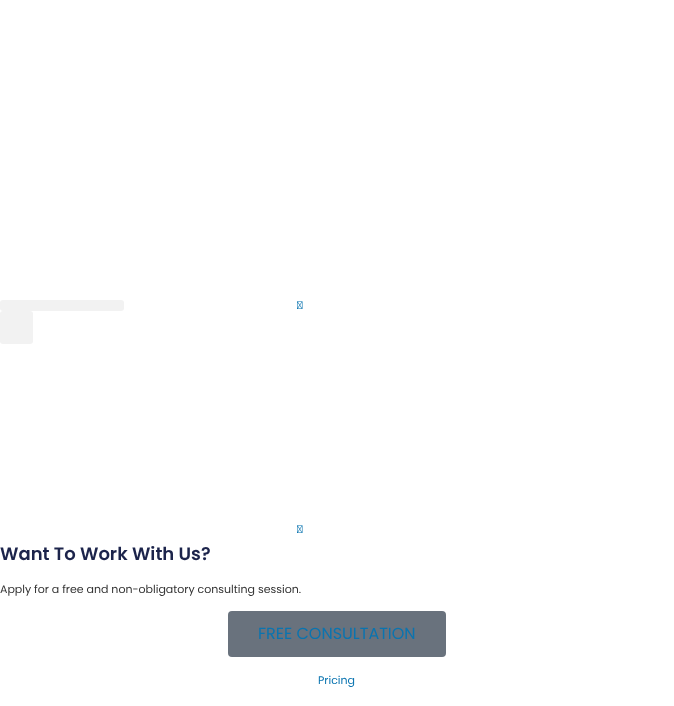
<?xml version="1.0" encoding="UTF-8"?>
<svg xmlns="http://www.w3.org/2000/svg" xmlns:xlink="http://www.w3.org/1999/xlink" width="674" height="706">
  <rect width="100%" height="100%" fill="#ffffff" />
  <rect y="300" width="124" height="11" rx="3" fill="#f2f2f2" />
  <image x="297" y="301" width="6" height="8" xlink:href="image1.png" />
  <rect y="311" width="33" height="33" rx="3" fill="#f2f2f2" />
  <image x="297" y="525" width="6" height="8" xlink:href="image1.png" />
  <rect x="228" y="611" width="218" height="46" rx="4" fill="#69727d" />
  <text x="0" y="560" style="font-family: Poppins; font-size: 18px; font-weight: 600; fill: #1c244b">Want To Work With Us?</text>
  <text x="0" y="593" style="font-family: Poppins; font-size: 11px; fill: #333333">Apply for a free and non-obligatory consulting session.</text>
  <text x="258" y="639" style="font-family: Poppins; font-size: 16px; fill: #0a74b0">FREE CONSULTATION</text>
  <text x="318" y="684" style="font-family: Poppins; font-size: 11px; fill: #0a74b0">Pricing</text>
</svg>
